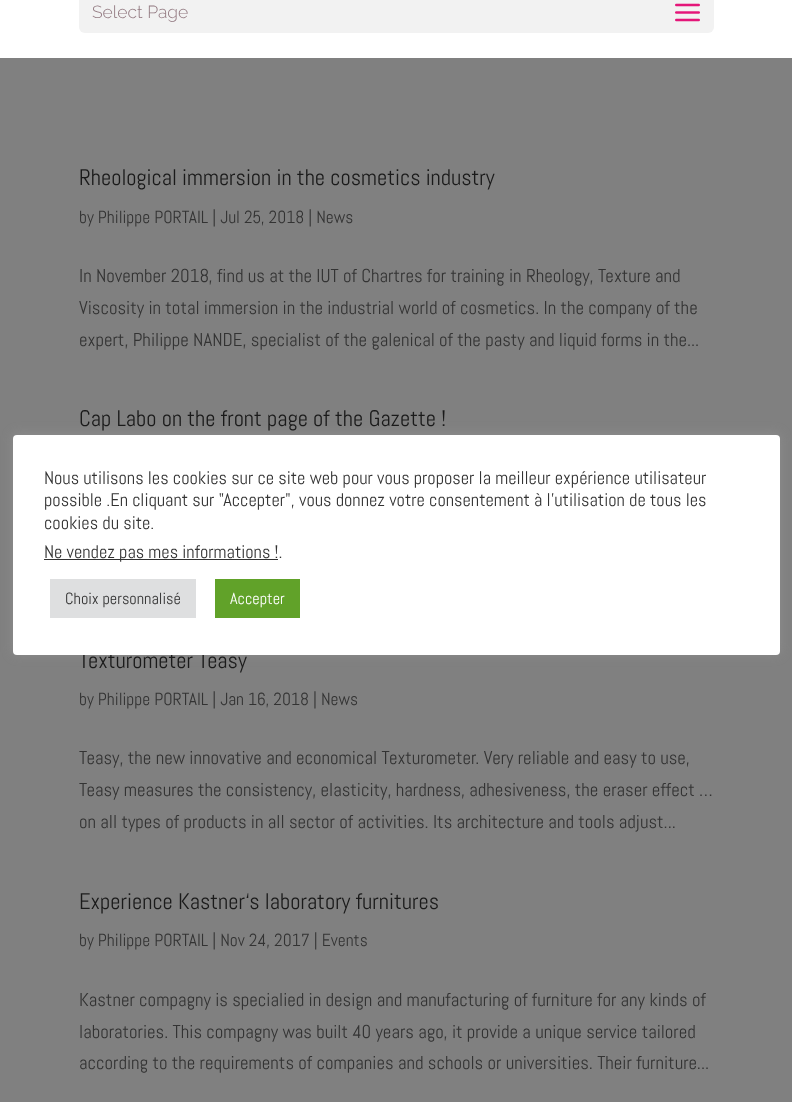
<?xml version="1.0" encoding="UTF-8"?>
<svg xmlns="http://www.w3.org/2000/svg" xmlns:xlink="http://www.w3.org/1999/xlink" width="792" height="1102">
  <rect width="100%" height="100%" fill="#808080" />
  <rect width="792" height="58" fill="#ffffff" />
  <rect x="79" y="-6" width="635" height="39" rx="6" fill="#f2f2f2" />
  <image x="675" y="3" width="25" height="19" xlink:href="image1.png" />
  <rect x="13" y="434" width="767" height="220" rx="4" fill="#acabab" fill-opacity="0.3" filter="blur(6px)" />
  <text x="92" y="18" style="font-family: Raleway; font-size: 17.5px; font-weight: 300; fill: #927980">Select Page</text>
  <text x="79" y="185" style="font-family: Abel; font-size: 22.5px; fill: #1a1a1a">Rheological immersion in the cosmetics industry</text>
  <text x="79" y="223" style="font-family: Abel; font-size: 17.5px; fill: #333333">by Philippe PORTAIL | Jul 25, 2018 | News</text>
  <text x="79" y="282" style="font-family: Abel; font-size: 18.75px; fill: #333333">In November 2018, find us at the IUT of Chartres for training in Rheology, Texture and</text>
  <text x="79" y="314" style="font-family: Abel; font-size: 18.75px; fill: #333333">Viscosity in total immersion in the industrial world of cosmetics. In the company of the</text>
  <text x="79" y="346" style="font-family: Abel; font-size: 18.75px; fill: #333333">expert, Philippe NANDE, specialist of the galenical of the pasty and liquid forms in the...</text>
  <text x="79" y="426" style="font-family: Abel; font-size: 22.5px; fill: #1a1a1a">Cap Labo on the front page of the Gazette !</text>
  <text x="79" y="668" style="font-family: Abel; font-size: 22.5px; fill: #1a1a1a">Texturometer Teasy</text>
  <text x="79" y="705" style="font-family: Abel; font-size: 17.5px; fill: #333333">by Philippe PORTAIL | Jan 16, 2018 | News</text>
  <text x="79" y="764" style="font-family: Abel; font-size: 18.75px; fill: #333333">Teasy, the new innovative and economical Texturometer. Very reliable and easy to use,</text>
  <text x="79" y="796" style="font-family: Abel; font-size: 18.75px; fill: #333333">Teasy measures the consistency, elasticity, hardness, adhesiveness, the eraser effect …</text>
  <text x="79" y="828" style="font-family: Abel; font-size: 18.75px; fill: #333333">on all types of products in all sector of activities. Its architecture and tools adjust...</text>
  <text x="79" y="909" style="font-family: Abel; font-size: 22.5px; fill: #1a1a1a">Experience Kastner‘s laboratory furnitures</text>
  <text x="79" y="946" style="font-family: Abel; font-size: 17.5px; fill: #333333">by Philippe PORTAIL | Nov 24, 2017 | Events</text>
  <text x="79" y="1006" style="font-family: Abel; font-size: 18.75px; fill: #333333">Kastner compagny is specialied in design and manufacturing of furniture for any kinds of</text>
  <text x="79" y="1038" style="font-family: Abel; font-size: 18.75px; fill: #333333">laboratories. This compagny was built 40 years ago, it provide a unique service tailored</text>
  <text x="79" y="1069" style="font-family: Abel; font-size: 18.75px; fill: #333333">according to the requirements of companies and schools or universities. Their furniture...</text>
  <rect x="13" y="435" width="767" height="220" rx="4" fill="#ffffff" />
  <text x="44" y="484" style="font-family: Abel; font-size: 18.35px; fill: #333333">Nous utilisons les cookies sur ce site web pour vous proposer la meilleur expérience utilisateur</text>
  <text x="44" y="506" style="font-family: Abel; font-size: 18.35px; fill: #333333">possible .En cliquant sur "Accepter", vous donnez votre consentement à l'utilisation de tous les</text>
  <text x="44" y="529" style="font-family: Abel; font-size: 18.35px; fill: #333333">cookies du site.</text>
  <rect x="44" y="559" width="234" height="1" fill="#333333" />
  <text x="44" y="558" style="font-family: Abel; font-size: 18.35px; fill: #333333">Ne vendez pas mes informations !.</text>
  <rect x="50" y="579" width="146" height="39" fill="#dedfe0" />
  <text x="65" y="604" style="font-family: Abel; font-size: 16.25px; fill: #333333">Choix personnalisé</text>
  <rect x="215" y="579" width="85" height="39" fill="#61a229" />
  <text x="230" y="604" style="font-family: Abel; font-size: 16.25px; fill: #ffffff">Accepter</text>
</svg>
